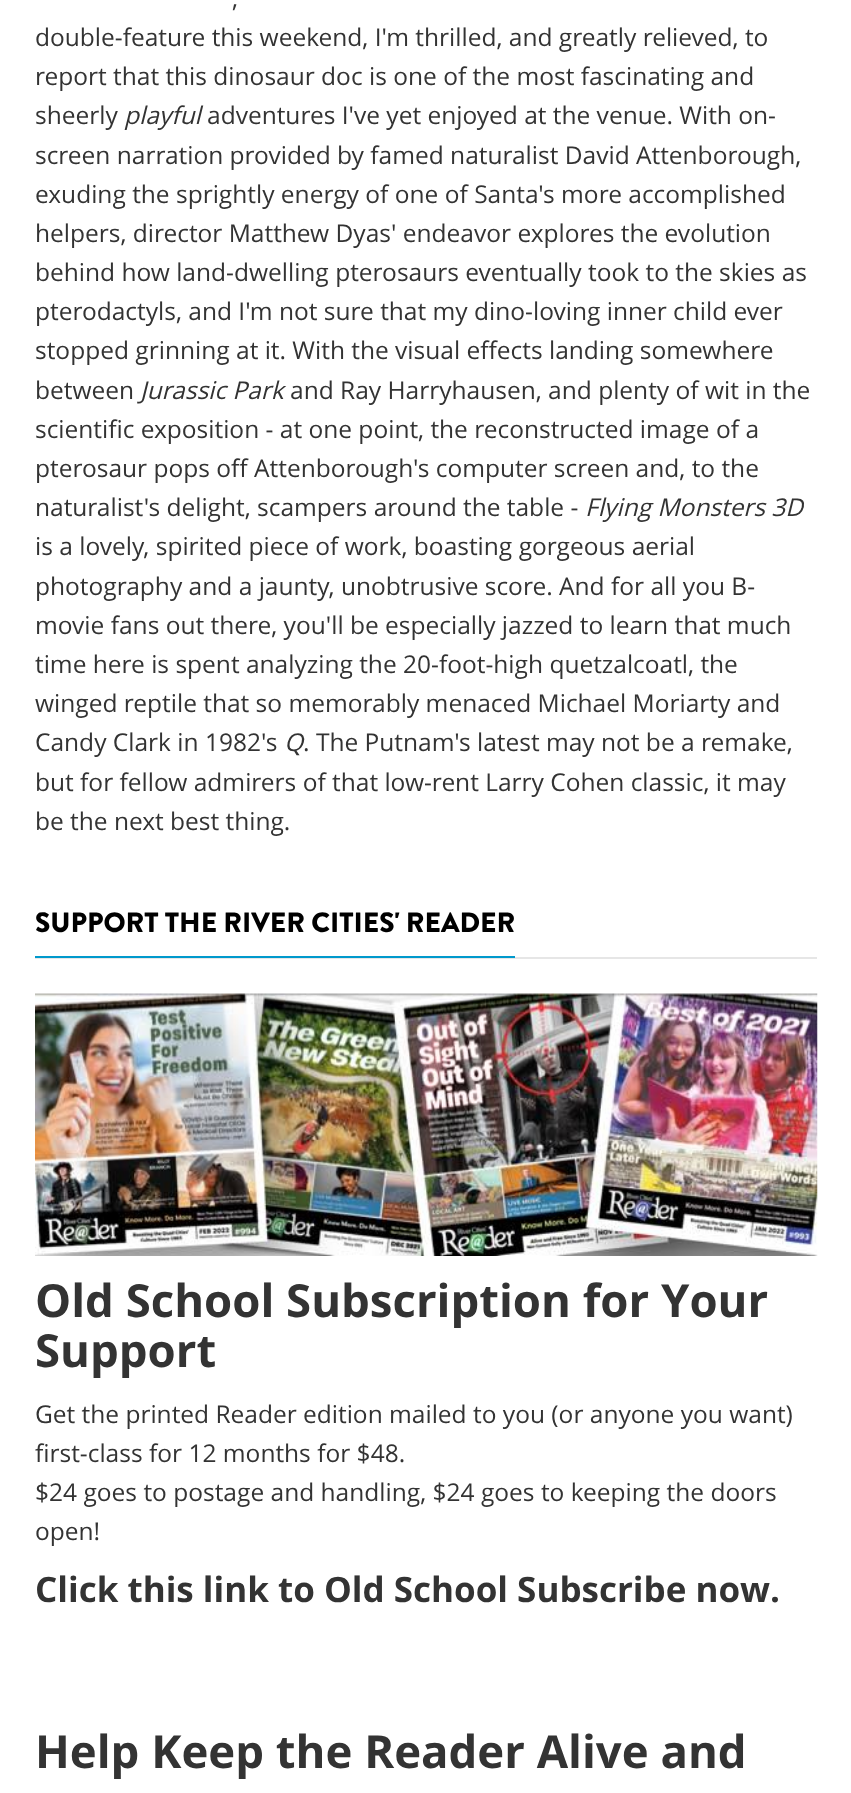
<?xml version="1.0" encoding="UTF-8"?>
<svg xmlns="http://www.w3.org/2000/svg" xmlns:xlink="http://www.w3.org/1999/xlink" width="851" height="1793">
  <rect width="100%" height="100%" fill="#ffffff" />
  <rect x="35" y="957" width="782" height="2" fill="#e6e6e6" />
  <rect x="35" y="956" width="480" height="2" fill="#0099cc" />
  <image x="35" y="993" width="783" height="263" xlink:href="image1.png" />
  <text x="232" y="7" style="font-family: Open Sans; font-size: 24.5px; fill: #333333">,</text>
  <text x="35" y="46" style="font-family: Open Sans; font-size: 24.5px; fill: #333333">double-feature this weekend, I'm thrilled, and greatly relieved, to</text>
  <text x="35" y="85" style="font-family: Open Sans; font-size: 24.5px; fill: #333333">report that this dinosaur doc is one of the most fascinating and</text>
  <text x="35" y="124" style="font-family: Open Sans; font-size: 24.5px; fill: #333333">sheerly</text>
  <text x="124" y="124" style="font-family: Open Sans; font-size: 24.5px; font-style: italic; fill: #333333">playful</text>
  <text x="207" y="124" style="font-family: Open Sans; font-size: 24.5px; fill: #333333">adventures I've yet enjoyed at the venue. With on-</text>
  <text x="35" y="164" style="font-family: Open Sans; font-size: 24.5px; fill: #333333">screen narration provided by famed naturalist David Attenborough,</text>
  <text x="35" y="203" style="font-family: Open Sans; font-size: 24.5px; fill: #333333">exuding the sprightly energy of one of Santa's more accomplished</text>
  <text x="35" y="242" style="font-family: Open Sans; font-size: 24.5px; fill: #333333">helpers, director Matthew Dyas' endeavor explores the evolution</text>
  <text x="35" y="281" style="font-family: Open Sans; font-size: 24.5px; fill: #333333">behind how land-dwelling pterosaurs eventually took to the skies as</text>
  <text x="35" y="320" style="font-family: Open Sans; font-size: 24.5px; fill: #333333">pterodactyls, and I'm not sure that my dino-loving inner child ever</text>
  <text x="35" y="359" style="font-family: Open Sans; font-size: 24.5px; fill: #333333">stopped grinning at it. With the visual effects landing somewhere</text>
  <text x="35" y="399" style="font-family: Open Sans; font-size: 24.5px; fill: #333333">between</text>
  <text x="140" y="399" style="font-family: Open Sans; font-size: 24.5px; font-style: italic; fill: #333333">Jurassic Park</text>
  <text x="290" y="399" style="font-family: Open Sans; font-size: 24.5px; fill: #333333">and Ray Harryhausen, and plenty of wit in the</text>
  <text x="35" y="438" style="font-family: Open Sans; font-size: 24.5px; fill: #333333">scientific exposition - at one point, the reconstructed image of a</text>
  <text x="35" y="477" style="font-family: Open Sans; font-size: 24.5px; fill: #333333">pterosaur pops off Attenborough's computer screen and, to the</text>
  <text x="35" y="516" style="font-family: Open Sans; font-size: 24.5px; fill: #333333">naturalist's delight, scampers around the table -</text>
  <text x="585" y="516" style="font-family: Open Sans; font-size: 24.5px; font-style: italic; fill: #333333">Flying Monsters 3D</text>
  <text x="35" y="555" style="font-family: Open Sans; font-size: 24.5px; fill: #333333">is a lovely, spirited piece of work, boasting gorgeous aerial</text>
  <text x="35" y="595" style="font-family: Open Sans; font-size: 24.5px; fill: #333333">photography and a jaunty, unobtrusive score. And for all you B-</text>
  <text x="35" y="634" style="font-family: Open Sans; font-size: 24.5px; fill: #333333">movie fans out there, you'll be especially jazzed to learn that much</text>
  <text x="35" y="673" style="font-family: Open Sans; font-size: 24.5px; fill: #333333">time here is spent analyzing the 20-foot-high quetzalcoatl, the</text>
  <text x="35" y="712" style="font-family: Open Sans; font-size: 24.5px; fill: #333333">winged reptile that so memorably menaced Michael Moriarty and</text>
  <text x="35" y="751" style="font-family: Open Sans; font-size: 24.5px; fill: #333333">Candy Clark in 1982's</text>
  <text x="284" y="751" style="font-family: Open Sans; font-size: 24.5px; font-style: italic; fill: #333333">Q</text>
  <text x="303" y="751" style="font-family: Open Sans; font-size: 24.5px; fill: #333333">. The Putnam's latest may not be a remake,</text>
  <text x="35" y="791" style="font-family: Open Sans; font-size: 24.5px; fill: #333333">but for fellow admirers of that low-rent Larry Cohen classic, it may</text>
  <text x="35" y="830" style="font-family: Open Sans; font-size: 24.5px; fill: #333333">be the next best thing.</text>
  <text x="35" y="932" style="font-family: Brandon Grotesque; font-size: 28px; font-weight: 900; fill: #000000">SUPPORT THE RIVER CITIES' READER</text>
  <text x="35" y="1317" style="font-family: Open Sans; font-size: 45.5px; font-weight: bold; fill: #333333">Old School Subscription for Your</text>
  <text x="35" y="1367" style="font-family: Open Sans; font-size: 45.5px; font-weight: bold; fill: #333333">Support</text>
  <text x="35" y="1423" style="font-family: Open Sans; font-size: 24.5px; fill: #333333">Get the printed Reader edition mailed to you (or anyone you want)</text>
  <text x="35" y="1462" style="font-family: Open Sans; font-size: 24.5px; fill: #333333">first-class for 12 months for $48.</text>
  <text x="35" y="1501" style="font-family: Open Sans; font-size: 24.5px; fill: #333333">$24 goes to postage and handling, $24 goes to keeping the doors</text>
  <text x="35" y="1540" style="font-family: Open Sans; font-size: 24.5px; fill: #333333">open!</text>
  <text x="35" y="1602" style="font-family: Open Sans; font-size: 35px; font-weight: bold; fill: #333333">Click this link to Old School Subscribe now.</text>
  <text x="35" y="1768" style="font-family: Open Sans; font-size: 45.5px; font-weight: bold; fill: #333333">Help Keep the Reader Alive and</text>
</svg>
